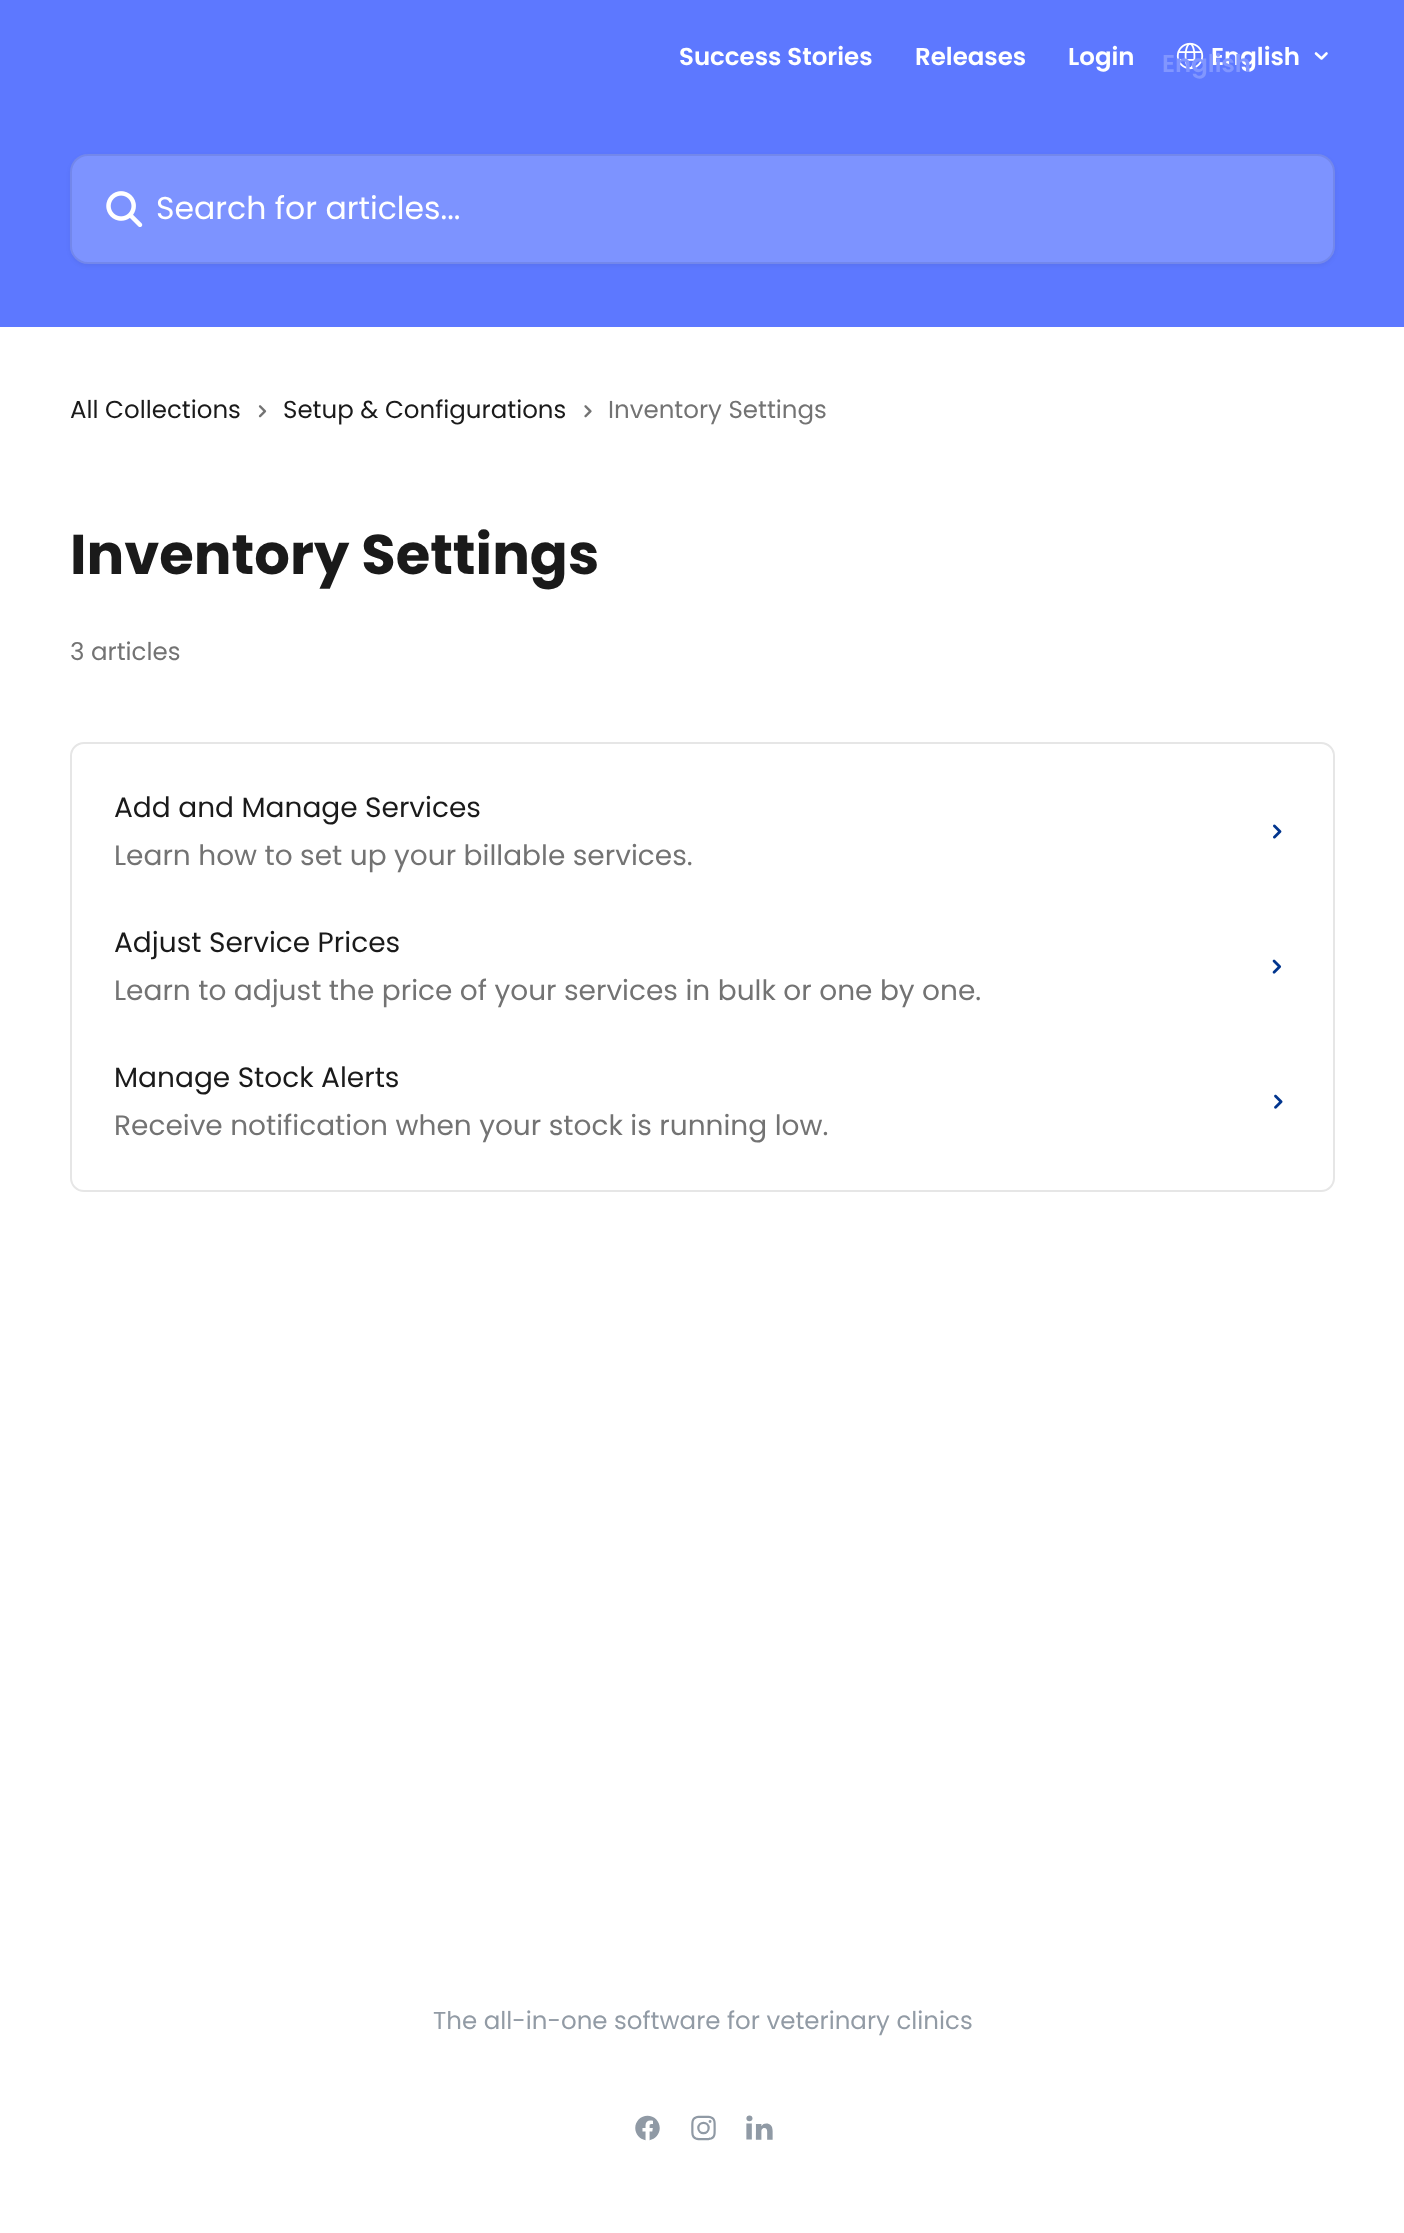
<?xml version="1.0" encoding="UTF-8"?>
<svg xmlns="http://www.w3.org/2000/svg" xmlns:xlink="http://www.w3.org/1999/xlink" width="1404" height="2233">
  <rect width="100%" height="100%" fill="#ffffff" />
  <rect width="1404" height="327" fill="#5d78ff" />
  <image x="1176" y="42" width="28" height="28" xlink:href="image1.png" />
  <path d="M 1316 53.5 l 5.5 5 l 5 -5" fill="none" stroke="#ffffff" stroke-width="2.6" stroke-linecap="round" stroke-linejoin="round" />
  <rect x="70" y="156" width="1265" height="110" rx="18" fill="#000000" fill-opacity="0.05" filter="blur(2px)" />
  <rect x="70" y="154" width="1265" height="110" rx="18" fill="#7d93ff" />
  <rect x="71" y="155" width="1263" height="108" rx="17" fill="none" stroke="#000000" stroke-opacity="0.08" stroke-width="2" />
  <image x="106" y="191" width="37" height="36" xlink:href="image2.png" />
  <image x="258" y="405" width="9" height="13" xlink:href="image3.png" />
  <image x="584" y="405" width="8" height="13" xlink:href="image4.png" />
  <rect x="71" y="743" width="1263" height="448" rx="13" fill="none" stroke="#e6e6e6" stroke-width="2" />
  <image x="1273" y="824" width="9" height="15" xlink:href="image5.png" />
  <image x="1272" y="959" width="10" height="15" xlink:href="image6.png" />
  <image x="1274" y="1094" width="9" height="15" xlink:href="image7.png" />
  <image x="635" y="2115" width="25" height="26" xlink:href="image8.png" />
  <image x="691" y="2115" width="25" height="26" xlink:href="image9.png" />
  <image x="746" y="2115" width="27" height="25" xlink:href="image10.png" />
  <text x="679" y="65" style="font-family: Poppins; font-size: 24.5px; font-weight: 600; fill: #ffffff">Success Stories</text>
  <text x="915" y="65" style="font-family: Poppins; font-size: 24.5px; font-weight: 600; fill: #ffffff">Releases</text>
  <text x="1068" y="65" style="font-family: Poppins; font-size: 24.5px; font-weight: 600; fill: #ffffff">Login</text>
  <text x="1211" y="65" style="font-family: Poppins; font-size: 24.5px; font-weight: 600; fill: #ffffff">English</text>
  <text x="1162" y="72" style="font-family: Poppins; font-size: 24.5px; font-weight: 600; fill: #8196ff">English</text>
  <text x="156" y="219" style="font-family: Poppins; font-size: 31.5px; fill: #ffffff">Search for articles...</text>
  <text x="70" y="418" style="font-family: Poppins; font-size: 24.5px; fill: #1a1a1a">All Collections</text>
  <text x="283" y="418" style="font-family: Poppins; font-size: 24.5px; fill: #1a1a1a">Setup &amp; Configurations</text>
  <text x="608" y="418" style="font-family: Poppins; font-size: 24.5px; fill: #737373">Inventory Settings</text>
  <text x="70" y="574" style="font-family: Poppins; font-size: 56px; font-weight: bold; fill: #1a1a1a">Inventory Settings</text>
  <text x="70" y="660" style="font-family: Poppins; font-size: 24.5px; fill: #737373">3 articles</text>
  <text x="114" y="817" style="font-family: Poppins; font-size: 28px; fill: #1a1a1a">Add and Manage Services</text>
  <text x="114" y="865" style="font-family: Poppins; font-size: 28px; fill: #737373">Learn how to set up your billable services.</text>
  <text x="114" y="952" style="font-family: Poppins; font-size: 28px; fill: #1a1a1a">Adjust Service Prices</text>
  <text x="114" y="1000" style="font-family: Poppins; font-size: 28px; fill: #737373">Learn to adjust the price of your services in bulk or one by one.</text>
  <text x="114" y="1087" style="font-family: Poppins; font-size: 28px; fill: #1a1a1a">Manage Stock Alerts</text>
  <text x="114" y="1135" style="font-family: Poppins; font-size: 28px; fill: #737373">Receive notification when your stock is running low.</text>
  <text x="433" y="2029" style="font-family: Poppins; font-size: 24.5px; fill: #929ba5">The all-in-one software for veterinary clinics</text>
</svg>
